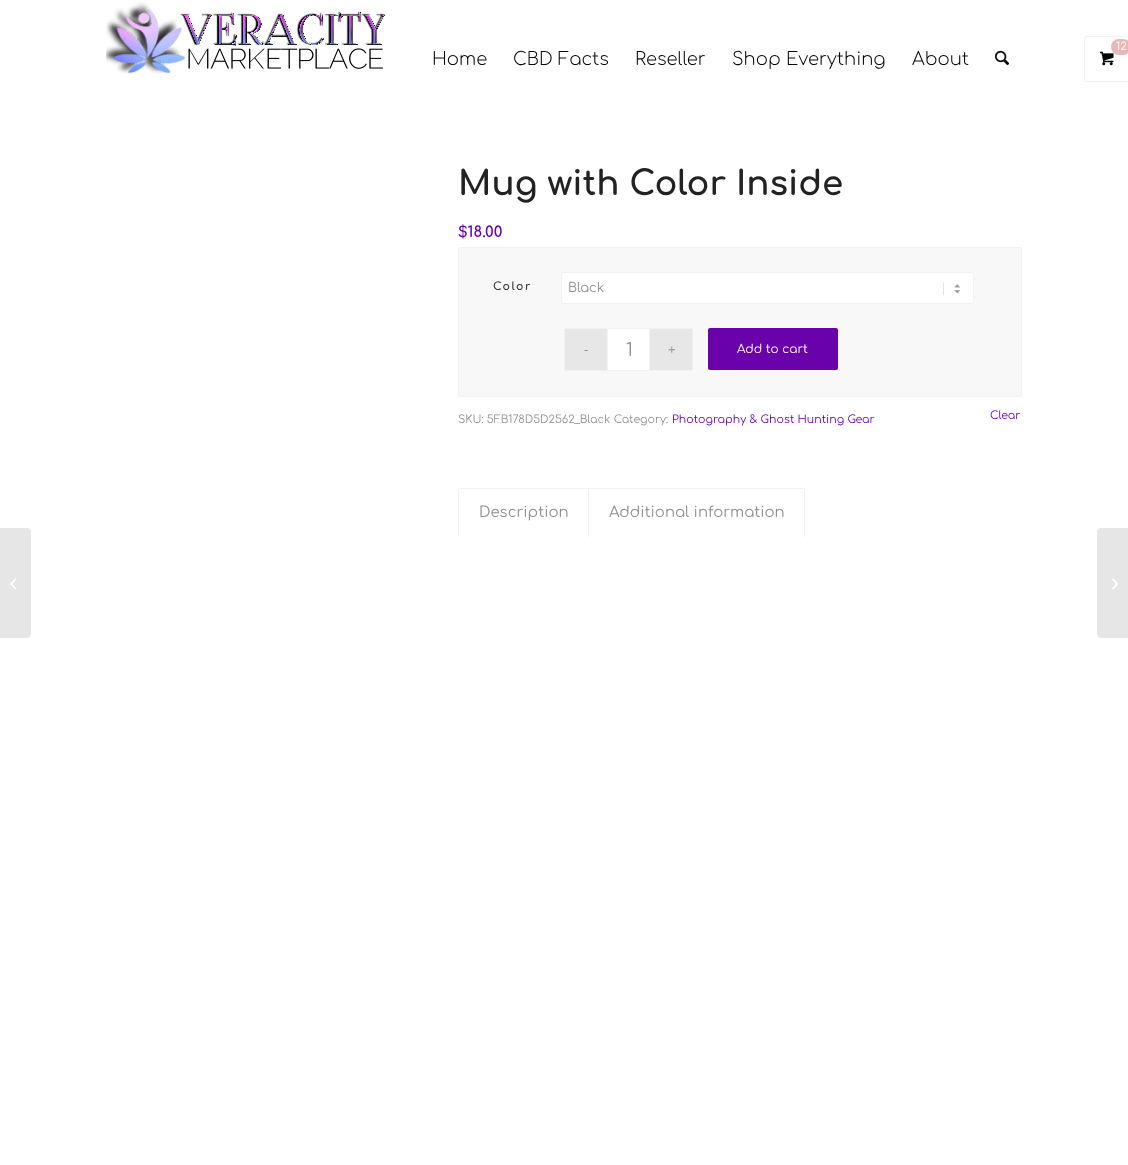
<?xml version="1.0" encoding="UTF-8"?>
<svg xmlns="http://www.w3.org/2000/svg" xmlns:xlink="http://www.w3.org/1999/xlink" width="1128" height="1165">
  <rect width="100%" height="100%" fill="#ffffff" />
  <rect x="1084.5" y="36.5" width="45" height="45" rx="1.5" fill="none" stroke="#f2f2f2" />
  <rect x="1085" y="37" width="1" height="44" fill="#ffffff" />
  <image x="1100" y="51" width="14" height="15" xlink:href="image1.png" />
  <rect x="1111" y="39" width="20" height="16" rx="8" fill="#e7b8b8" />
  <image x="106" y="2" width="280" height="72" xlink:href="image2.png" />
  <image x="995" y="50" width="14" height="16" xlink:href="image3.png" />
  <rect x="458.5" y="247.5" width="563" height="149" rx="1.5" fill="#f8f8f8" stroke="#f2f2f2" />
  <rect x="561" y="272" width="413" height="32" rx="2" fill="#ffffff" />
  <image x="943" y="282" width="18" height="13" xlink:href="image4.png" />
  <rect x="561.5" y="272.5" width="412" height="31" rx="1.5" fill="none" stroke="#f2f2f2" />
  <rect x="565" y="329" width="42" height="41" fill="#e7e7e7" />
  <rect x="564" y="328" width="43" height="1" fill="#f2f2f2" />
  <rect x="564" y="370" width="43" height="1" fill="#f2f2f2" />
  <rect x="564" y="328" width="1" height="43" fill="#f2f2f2" />
  <rect x="607.5" y="328.5" width="42" height="42" fill="#ffffff" stroke="#f2f2f2" />
  <rect x="650" y="329" width="42" height="41" fill="#e7e7e7" />
  <rect x="650" y="328" width="43" height="1" fill="#f2f2f2" />
  <rect x="692" y="328" width="1" height="43" fill="#f2f2f2" />
  <rect x="650" y="370" width="43" height="1" fill="#f2f2f2" />
  <rect x="708" y="328" width="130" height="42" rx="2" fill="#6a02ab" />
  <rect x="459" y="488" width="130" height="1" fill="#f2f2f2" />
  <rect x="588" y="488" width="1" height="49" fill="#f2f2f2" />
  <rect x="458" y="489" width="1" height="48" fill="#f2f2f2" />
  <rect x="588" y="488" width="216" height="1" fill="#f2f2f2" />
  <rect x="804" y="489" width="1" height="48" fill="#f2f2f2" />
  <path d="M 0 528 h 27 c 2 0 4 2 4 4 v 102 c 0 2 -2 4 -4 4 h -27 z" fill="#e6e6e6" />
  <image x="10" y="578" width="6" height="12" xlink:href="image5.png" />
  <path d="M 1101 528 h 27 v 110 h -27 c -2 0 -4 -2 -4 -4 v -102 c 0 -2 2 -4 4 -4 z" fill="#e6e6e6" />
  <image x="1112" y="578" width="6" height="12" xlink:href="image6.png" />
  <text x="1116" y="50" style="font-family: Comfortaa; font-size: 11px; fill: #ffffff">12</text>
  <text x="432" y="65" style="font-family: Comfortaa; font-size: 18px; font-weight: 300; fill: #080708">Home</text>
  <text x="513" y="65" style="font-family: Comfortaa; font-size: 18px; font-weight: 300; fill: #080708">CBD Facts</text>
  <text x="635" y="65" style="font-family: Comfortaa; font-size: 18px; font-weight: 300; fill: #080708">Reseller</text>
  <text x="732" y="65" style="font-family: Comfortaa; font-size: 18px; font-weight: 300; fill: #080708">Shop Everything</text>
  <text x="912" y="65" style="font-family: Comfortaa; font-size: 18px; font-weight: 300; fill: #080708">About</text>
  <text x="458" y="195" style="font-family: Comfortaa; font-size: 34px; font-weight: bold; fill: #222222">Mug with Color Inside</text>
  <text x="458" y="237" style="font-family: Comfortaa; font-size: 15px; font-weight: bold; fill: #6a02ab">$18.00</text>
  <text x="493" y="290" style="font-family: Comfortaa; font-size: 11px; font-weight: bold; letter-spacing: 1.5px; fill: #383538">Color</text>
  <text x="568" y="292" style="font-family: Comfortaa; font-size: 13px; fill: #919191">Black</text>
  <text x="990" y="419" style="font-family: Comfortaa; font-size: 11px; fill: #6a02ab">Clear</text>
  <text x="584" y="354" style="font-family: Liberation Sans; font-size: 13px; fill: #919191">-</text>
  <text x="626" y="356" style="font-family: Comfortaa; font-size: 18px; fill: #919191">1</text>
  <text x="668" y="354" style="font-family: Liberation Sans; font-size: 13px; fill: #919191">+</text>
  <text x="737" y="353" style="font-family: Comfortaa; font-size: 12px; fill: #ffffff">Add to cart</text>
  <text x="458" y="423" style="font-family: Comfortaa; font-size: 11px; fill: #919191">SKU: 5FB178D5D2562_Black Category:</text>
  <text x="672" y="423" style="font-family: Comfortaa; font-size: 11px; fill: #6a02ab">Photography &amp; Ghost Hunting Gear</text>
  <text x="479" y="517" style="font-family: Comfortaa; font-size: 14.9px; fill: #919191">Description</text>
  <text x="609" y="517" style="font-family: Comfortaa; font-size: 14.9px; fill: #919191">Additional information</text>
</svg>
